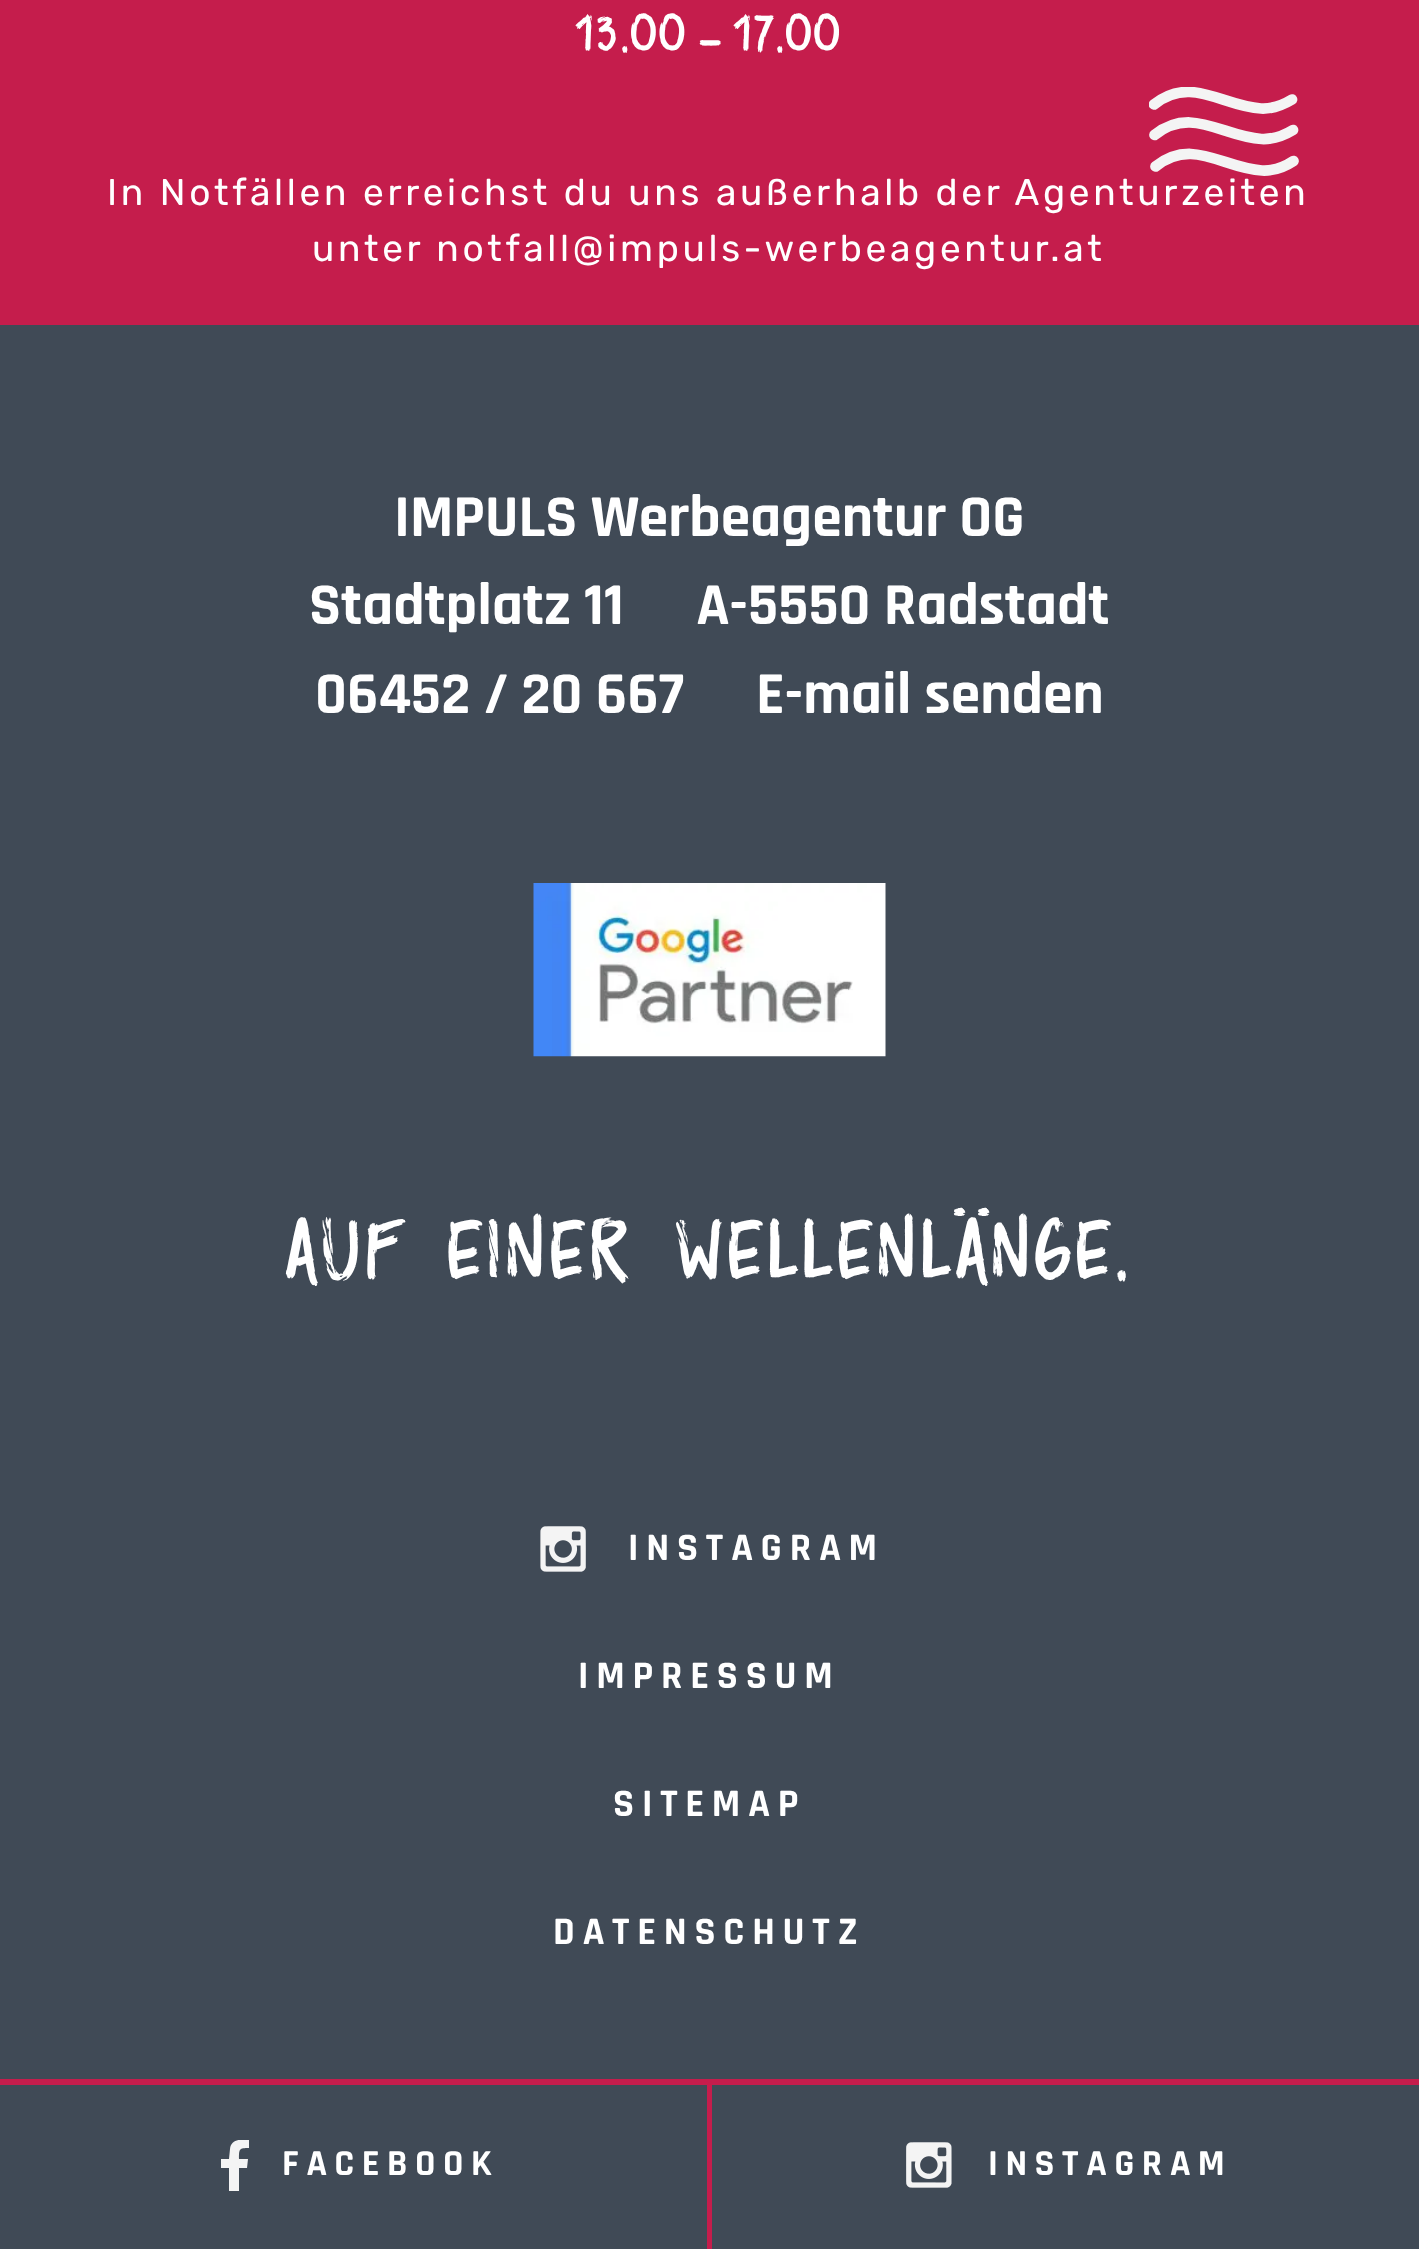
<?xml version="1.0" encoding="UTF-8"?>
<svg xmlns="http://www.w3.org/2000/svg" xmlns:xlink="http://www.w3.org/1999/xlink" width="1419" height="2249">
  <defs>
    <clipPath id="clip1"><rect x="209" y="2140" width="55" height="55" /></clipPath>
    <clipPath id="clip2"><rect x="1149" y="87" width="150" height="89" /></clipPath>
  </defs>
  <rect width="100%" height="100%" fill="#c51d4c" />
  <rect y="325" width="1419" height="1754" fill="#404a56" />
  <image x="533" y="883" width="353" height="174" xlink:href="image1.png" />
  <image x="540" y="1526" width="46" height="46" xlink:href="image2.png" />
  <rect y="2085" width="707" height="164" fill="#404a56" />
  <g clip-path="url(#clip1)">
    <path d="M 247 2168 l 1 -9 h -9 c 0 -10 0 -11 10 -11 v -8 c -8 -1 -18 -1 -19 9 l -1 10 h -8 v 9 h 8 v 23 h 10 v -23 z" fill="#f4f4f4" />
  </g>
  <rect x="712" y="2085" width="707" height="164" fill="#404a56" />
  <image x="906" y="2142" width="46" height="46" xlink:href="image3.png" />
  <g clip-path="url(#clip2)">
    <path d="M 1154 104.5 c 37 -29.5 68.5 2 107 4 c 10.5 0.5 22 -3.5 31 -9" fill="none" stroke="#f4f4f4" stroke-width="10.7" stroke-linecap="round" />
  </g>
  <path d="M 1154.5 135 c 37 -29.5 68.5 2 107 4 c 10.5 0.5 22.5 -3.5 31.5 -9" fill="none" stroke="#f4f4f4" stroke-width="10.7" stroke-linecap="round" />
  <path d="M 1155.5 166.5 c 37 -29.5 68 2 106.5 4 c 11 0.5 22.5 -3.5 31.5 -9.5" fill="none" stroke="#f4f4f4" stroke-width="10.7" stroke-linecap="round" />
  <text x="576" y="52" style="font-family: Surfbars; font-size: 54px; letter-spacing: 2.5px; fill: #ffffff">13.00</text>
  <text x="699" y="52" style="font-family: Surfbars; font-size: 54px; letter-spacing: 2.5px; fill: #ffffff">–</text>
  <text x="734" y="52" style="font-family: Surfbars; font-size: 54px; letter-spacing: 2.5px; fill: #ffffff">17.00</text>
  <text x="107" y="205" style="font-family: Rubik; font-size: 37.1px; font-weight: 300; letter-spacing: 3.7px; fill: #ffffff">In Notfällen erreichst du uns außerhalb der Agenturzeiten</text>
  <text x="312" y="261" style="font-family: Rubik; font-size: 37.1px; font-weight: 300; letter-spacing: 3.7px; fill: #ffffff">unter notfall@impuls-werbeagentur.at</text>
  <text x="394" y="536" style="font-family: Rajdhani; font-size: 59.75px; font-weight: bold; fill: #ffffff">IMPULS Werbeagentur OG</text>
  <text x="309" y="624" style="font-family: Rajdhani; font-size: 59.75px; font-weight: bold; fill: #ffffff">Stadtplatz 11</text>
  <text x="696" y="624" style="font-family: Rajdhani; font-size: 59.75px; font-weight: bold; fill: #ffffff">A-5550 Radstadt</text>
  <text x="315" y="713" style="font-family: Rajdhani; font-size: 59.75px; font-weight: bold; fill: #ffffff">06452 / 20 667</text>
  <text x="756" y="713" style="font-family: Rajdhani; font-size: 59.75px; font-weight: bold; fill: #ffffff">E-mail senden</text>
  <text x="286" y="1280" style="font-family: Surfbars; font-size: 88.75px; letter-spacing: 5.6px; fill: #ffffff">AUF EINER WELLENLÄNGE.</text>
  <text x="628" y="1560" style="font-family: Rajdhani; font-size: 39.25px; font-weight: bold; letter-spacing: 7.75px; fill: #ffffff">INSTAGRAM</text>
  <text x="578" y="1688" style="font-family: Rajdhani; font-size: 39.25px; font-weight: bold; letter-spacing: 7.75px; fill: #ffffff">IMPRESSUM</text>
  <text x="613" y="1816" style="font-family: Rajdhani; font-size: 39.25px; font-weight: bold; letter-spacing: 7.75px; fill: #ffffff">SITEMAP</text>
  <text x="553" y="1944" style="font-family: Rajdhani; font-size: 39.25px; font-weight: bold; letter-spacing: 7.75px; fill: #ffffff">DATENSCHUTZ</text>
  <text x="282" y="2175" style="font-family: Rajdhani; font-size: 37.1px; font-weight: bold; letter-spacing: 7.5px; fill: #ffffff">FACEBOOK</text>
  <text x="988" y="2175" style="font-family: Rajdhani; font-size: 37.1px; font-weight: bold; letter-spacing: 7.5px; fill: #ffffff">INSTAGRAM</text>
</svg>
